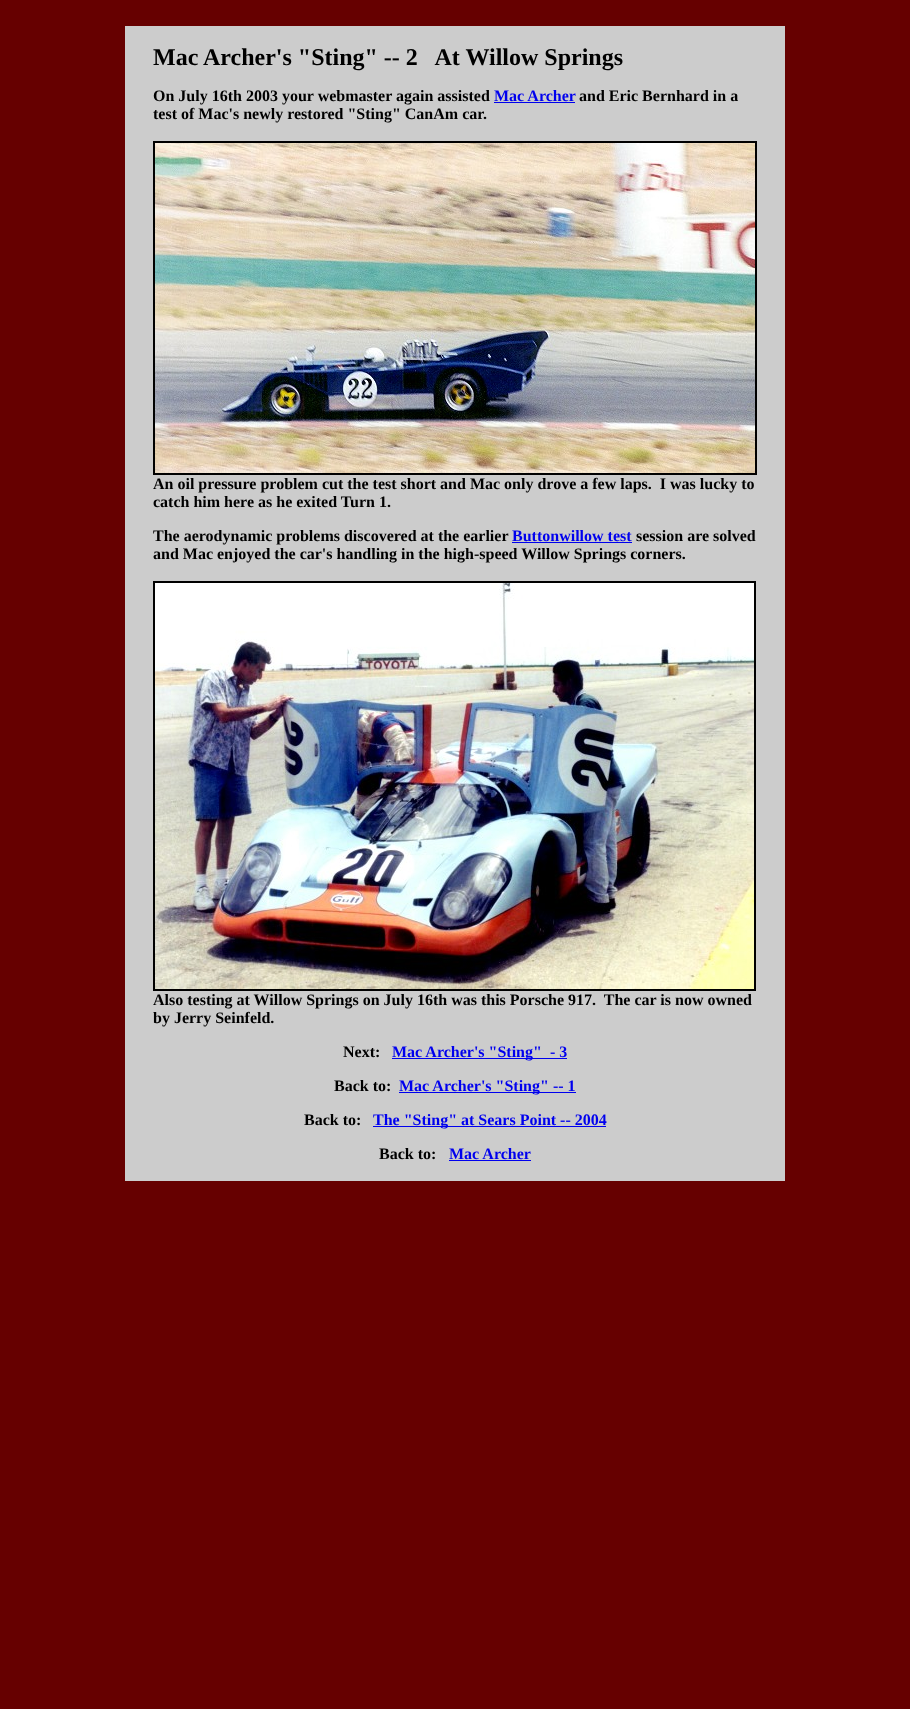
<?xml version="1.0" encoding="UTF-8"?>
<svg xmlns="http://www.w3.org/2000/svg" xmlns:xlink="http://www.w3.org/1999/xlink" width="910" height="1709">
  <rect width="100%" height="100%" fill="#660000" />
  <rect x="125" y="26" width="660" height="1155" fill="#cccccc" />
  <rect x="494" y="102" width="81" height="1" fill="#0000ee" />
  <rect x="154" y="142" width="602" height="332" fill="none" stroke="#000000" stroke-width="2" />
  <image x="155" y="143" width="600" height="330" xlink:href="image1.png" />
  <rect x="512" y="542" width="120" height="1" fill="#0000ee" />
  <rect x="154" y="582" width="601" height="408" fill="none" stroke="#000000" stroke-width="2" />
  <image x="155" y="583" width="599" height="406" xlink:href="image2.png" />
  <rect x="392" y="1058" width="175" height="1" fill="#0000ee" />
  <rect x="399" y="1092" width="177" height="1" fill="#0000ee" />
  <rect x="373" y="1126" width="233" height="1" fill="#0000ee" />
  <rect x="449" y="1160" width="82" height="1" fill="#0000ee" />
  <text x="153" y="65" style="font-family: Liberation Serif; font-size: 24px; font-weight: bold; fill: #000000" xml:space="preserve">Mac Archer's "Sting" -- 2   At Willow Springs</text>
  <text x="153" y="101" style="font-family: Liberation Serif; font-size: 16px; font-weight: bold; fill: #000000">On July 16th 2003 your webmaster again assisted</text>
  <text x="494" y="101" style="font-family: Liberation Serif; font-size: 16px; font-weight: bold; fill: #0000ee">Mac Archer</text>
  <text x="579" y="101" style="font-family: Liberation Serif; font-size: 16px; font-weight: bold; fill: #000000">and Eric Bernhard in a</text>
  <text x="153" y="119" style="font-family: Liberation Serif; font-size: 16px; font-weight: bold; fill: #000000">test of Mac's newly restored "Sting" CanAm car.</text>
  <text x="153" y="489" style="font-family: Liberation Serif; font-size: 16px; font-weight: bold; fill: #000000" xml:space="preserve">An oil pressure problem cut the test short and Mac only drove a few laps.  I was lucky to</text>
  <text x="153" y="507" style="font-family: Liberation Serif; font-size: 16px; font-weight: bold; fill: #000000">catch him here as he exited Turn 1.</text>
  <text x="153" y="541" style="font-family: Liberation Serif; font-size: 16px; font-weight: bold; fill: #000000">The aerodynamic problems discovered at the earlier</text>
  <text x="512" y="541" style="font-family: Liberation Serif; font-size: 16px; font-weight: bold; fill: #0000ee">Buttonwillow test</text>
  <text x="636" y="541" style="font-family: Liberation Serif; font-size: 16px; font-weight: bold; fill: #000000">session are solved</text>
  <text x="153" y="559" style="font-family: Liberation Serif; font-size: 16px; font-weight: bold; fill: #000000">and Mac enjoyed the car's handling in the high-speed Willow Springs corners.</text>
  <text x="153" y="1005" style="font-family: Liberation Serif; font-size: 16px; font-weight: bold; fill: #000000" xml:space="preserve">Also testing at Willow Springs on July 16th was this Porsche 917.  The car is now owned</text>
  <text x="153" y="1023" style="font-family: Liberation Serif; font-size: 16px; font-weight: bold; fill: #000000">by Jerry Seinfeld.</text>
  <text x="343" y="1057" style="font-family: Liberation Serif; font-size: 16px; font-weight: bold; fill: #000000">Next:</text>
  <text x="392" y="1057" style="font-family: Liberation Serif; font-size: 16px; font-weight: bold; fill: #0000ee" xml:space="preserve">Mac Archer's "Sting"  - 3</text>
  <text x="334" y="1091" style="font-family: Liberation Serif; font-size: 16px; font-weight: bold; fill: #000000">Back to:</text>
  <text x="399" y="1091" style="font-family: Liberation Serif; font-size: 16px; font-weight: bold; fill: #0000ee">Mac Archer's "Sting" -- 1</text>
  <text x="304" y="1125" style="font-family: Liberation Serif; font-size: 16px; font-weight: bold; fill: #000000">Back to:</text>
  <text x="373" y="1125" style="font-family: Liberation Serif; font-size: 16px; font-weight: bold; fill: #0000ee">The "Sting" at Sears Point -- 2004</text>
  <text x="379" y="1159" style="font-family: Liberation Serif; font-size: 16px; font-weight: bold; fill: #000000">Back to:</text>
  <text x="449" y="1159" style="font-family: Liberation Serif; font-size: 16px; font-weight: bold; fill: #0000ee">Mac Archer</text>
</svg>
